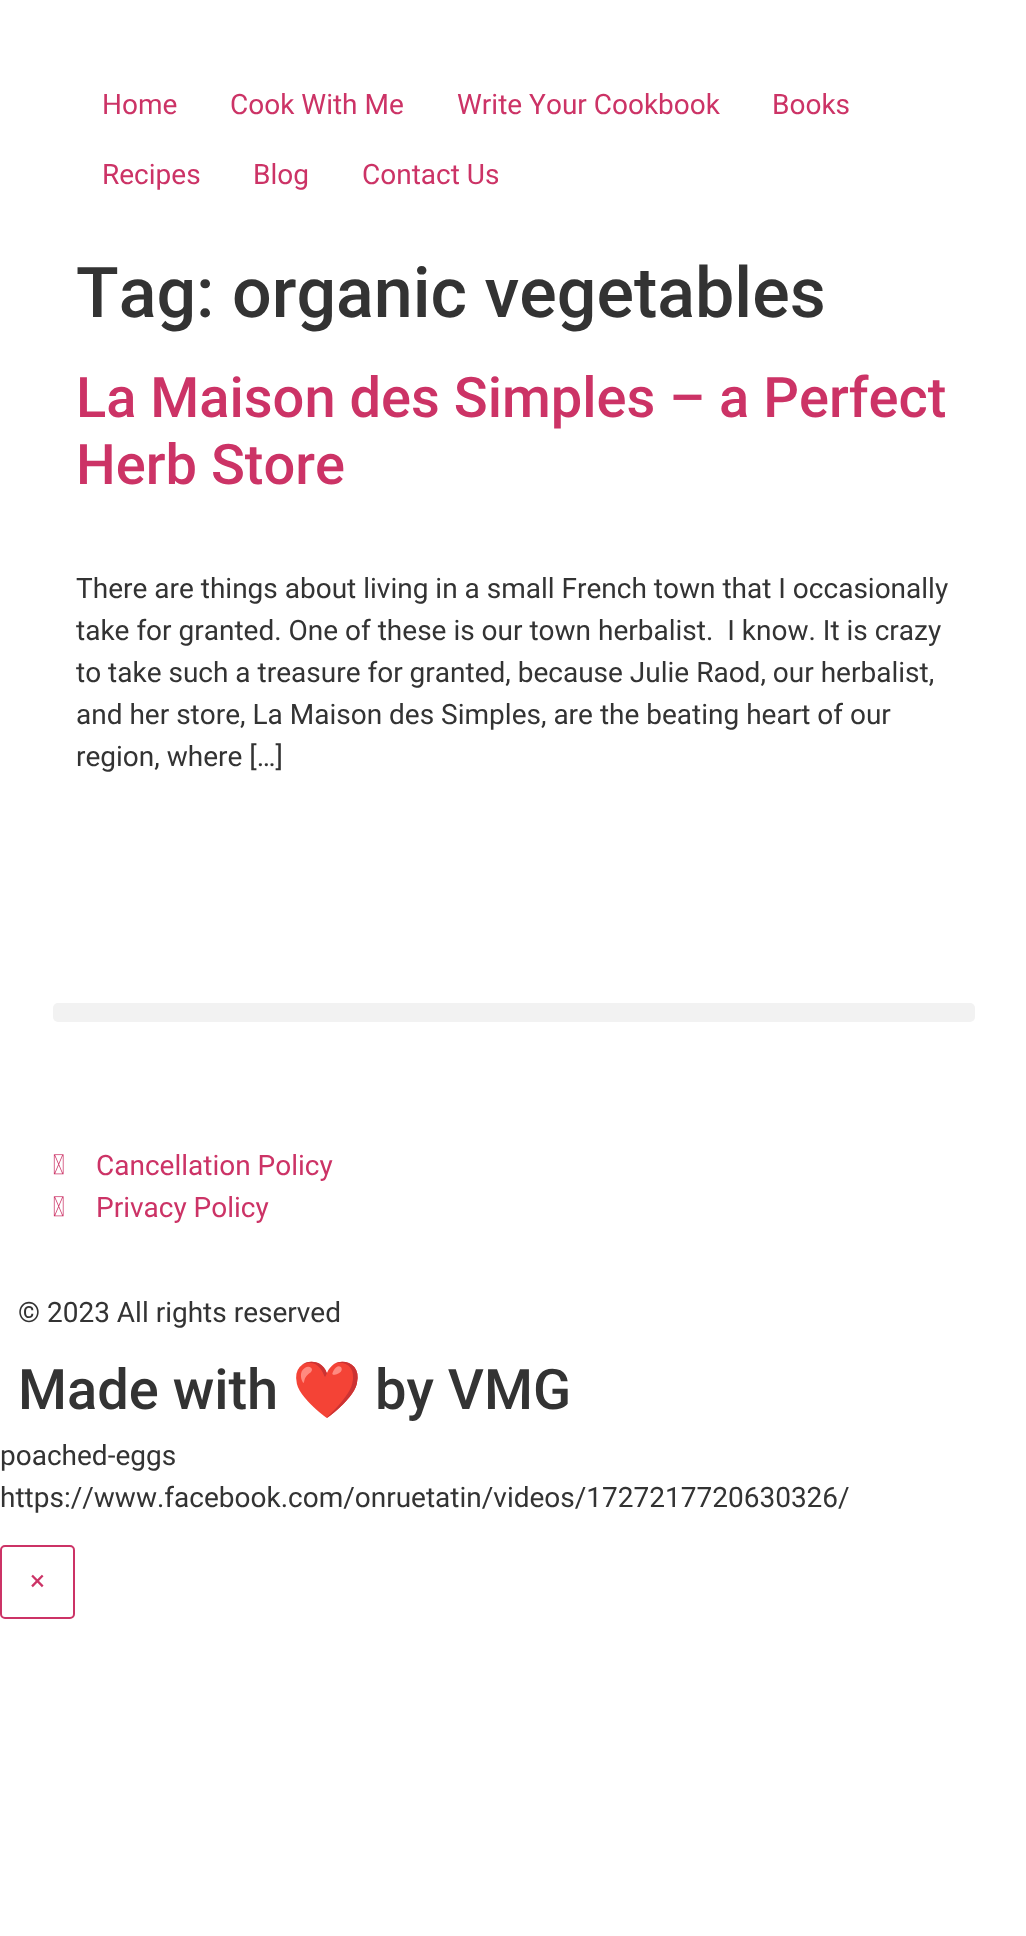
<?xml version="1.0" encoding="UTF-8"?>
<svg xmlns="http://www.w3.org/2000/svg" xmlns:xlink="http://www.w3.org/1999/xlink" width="1026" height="1936">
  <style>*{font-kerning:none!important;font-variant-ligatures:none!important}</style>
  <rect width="100%" height="100%" fill="#ffffff" />
  <rect x="53" y="1003" width="922" height="19" rx="5" fill="#f2f2f2" />
  <image x="53" y="1154" width="11" height="21" xlink:href="image1.png" />
  <image x="53" y="1196" width="11" height="21" xlink:href="image1.png" />
  <rect x="1" y="1546" width="73" height="72" rx="4" fill="none" stroke="#cc3366" stroke-width="2" />
  <text x="102" y="114" style="font-family: Roboto; font-size: 28px; fill: #cc3366">Home</text>
  <text x="230" y="114" style="font-family: Roboto; font-size: 28px; fill: #cc3366">Cook With Me</text>
  <text x="457" y="114" style="font-family: Roboto; font-size: 28px; fill: #cc3366">Write Your Cookbook</text>
  <text x="772" y="114" style="font-family: Roboto; font-size: 28px; fill: #cc3366">Books</text>
  <text x="102" y="184" style="font-family: Roboto; font-size: 28px; fill: #cc3366">Recipes</text>
  <text x="253" y="184" style="font-family: Roboto; font-size: 28px; fill: #cc3366">Blog</text>
  <text x="362" y="184" style="font-family: Roboto; font-size: 28px; fill: #cc3366">Contact Us</text>
  <text x="76" y="317" style="font-family: Roboto; font-size: 70px; font-weight: 500; fill: #333333">Tag: organic vegetables</text>
  <text x="76" y="417" style="font-family: Roboto; font-size: 56px; font-weight: 500; fill: #cc3366">La Maison des Simples – a Perfect</text>
  <text x="76" y="484" style="font-family: Roboto; font-size: 56px; font-weight: 500; fill: #cc3366">Herb Store</text>
  <text x="76" y="598" style="font-family: Roboto; font-size: 28px; fill: #333333">There are things about living in a small French town that I occasionally</text>
  <text x="76" y="640" style="font-family: Roboto; font-size: 28px; fill: #333333" xml:space="preserve">take for granted. One of these is our town herbalist.  I know. It is crazy</text>
  <text x="76" y="682" style="font-family: Roboto; font-size: 28px; fill: #333333">to take such a treasure for granted, because Julie Raod, our herbalist,</text>
  <text x="76" y="724" style="font-family: Roboto; font-size: 28px; fill: #333333">and her store, La Maison des Simples, are the beating heart of our</text>
  <text x="76" y="766" style="font-family: Roboto; font-size: 28px; fill: #333333">region, where […]</text>
  <text x="96" y="1175" style="font-family: Roboto; font-size: 28px; fill: #cc3366">Cancellation Policy</text>
  <text x="96" y="1217" style="font-family: Roboto; font-size: 28px; fill: #cc3366">Privacy Policy</text>
  <text x="18" y="1322" style="font-family: Roboto; font-size: 28px; fill: #333333">© 2023 All rights reserved</text>
  <text x="18" y="1409" style="font-family: Roboto; font-size: 56px; font-weight: 500; fill: #333333">Made with</text>
  <text x="292" y="1409" style="font-family: Noto Color Emoji; font-size: 56px; fill: #333333">❤</text>
  <text x="375" y="1409" style="font-family: Roboto; font-size: 56px; font-weight: 500; fill: #333333">by VMG</text>
  <text x="0" y="1465" style="font-family: Roboto; font-size: 28px; fill: #333333">poached-eggs</text>
  <text x="0" y="1507" style="font-family: Roboto; font-size: 28px; fill: #333333">https://www.facebook.com/onruetatin/videos/1727217720630326/</text>
  <text x="30" y="1590" style="font-family: Roboto; font-size: 28px; fill: #cc3366">×</text>
</svg>
